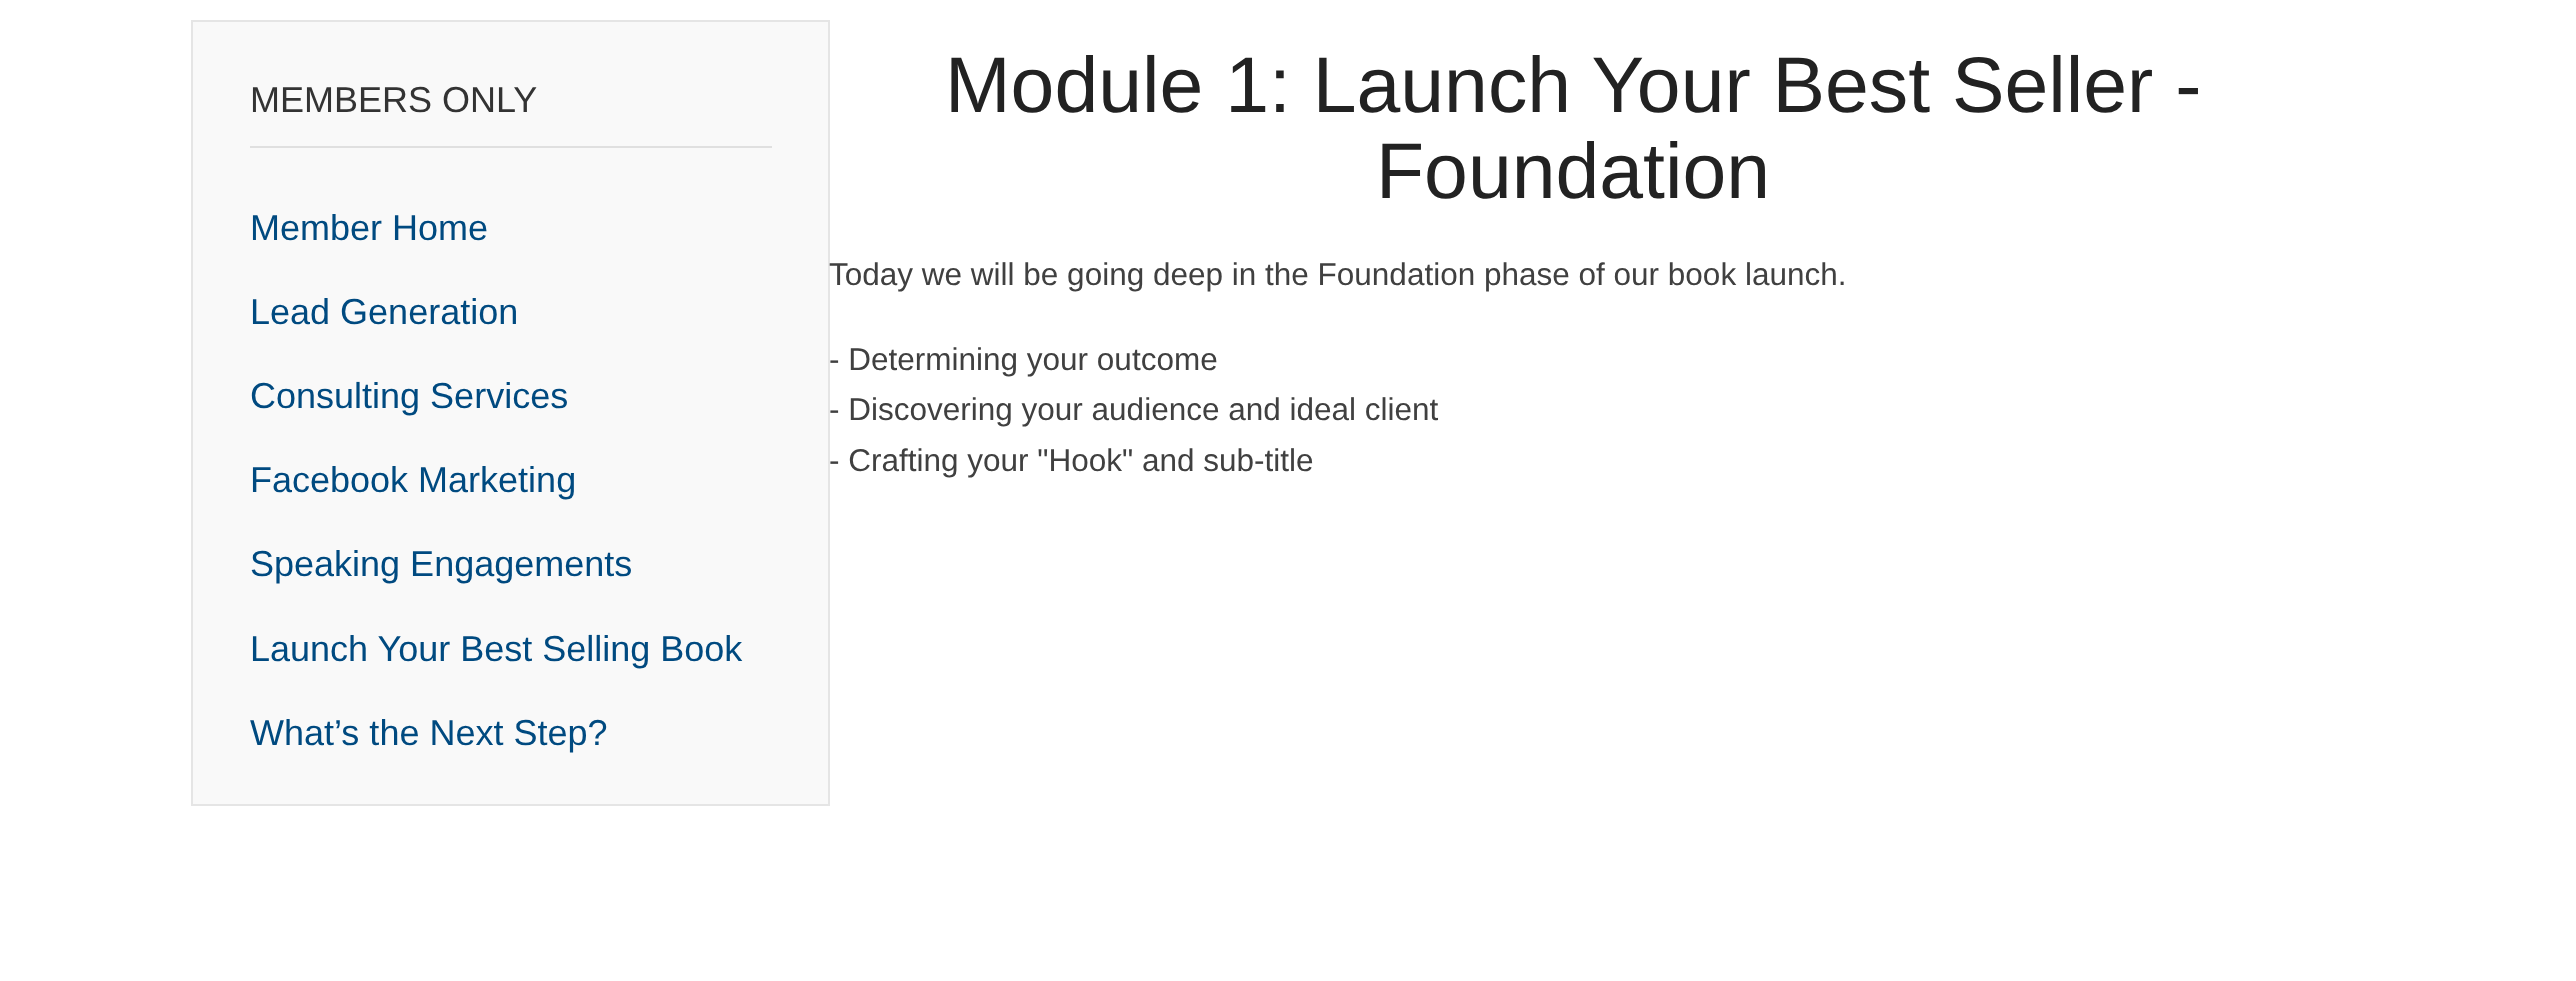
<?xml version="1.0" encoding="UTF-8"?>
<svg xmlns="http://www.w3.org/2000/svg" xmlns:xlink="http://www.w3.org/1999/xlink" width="2576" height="981">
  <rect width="100%" height="100%" fill="#ffffff" />
  <rect x="192" y="21" width="637" height="784" fill="#f9f9f9" stroke="#e5e5e5" stroke-width="2" />
  <rect x="250" y="146" width="522" height="2" fill="#e0e0e0" />
  <text x="250" y="112" style="font-family: Liberation Sans; font-size: 36px; fill: #333333">MEMBERS ONLY</text>
  <text x="250" y="240" style="font-family: Liberation Sans; font-size: 36px; fill: #004a80">Member Home</text>
  <text x="250" y="324" style="font-family: Liberation Sans; font-size: 36px; fill: #004a80">Lead Generation</text>
  <text x="250" y="408" style="font-family: Liberation Sans; font-size: 36px; fill: #004a80">Consulting Services</text>
  <text x="250" y="492" style="font-family: Liberation Sans; font-size: 36px; fill: #004a80">Facebook Marketing</text>
  <text x="250" y="576" style="font-family: Liberation Sans; font-size: 36px; fill: #004a80">Speaking Engagements</text>
  <text x="250" y="661" style="font-family: Liberation Sans; font-size: 36px; fill: #004a80">Launch Your Best Selling Book</text>
  <text x="250" y="745" style="font-family: Liberation Sans; font-size: 36px; fill: #004a80">What’s the Next Step?</text>
  <text x="945" y="112" style="font-family: Liberation Sans; font-size: 78.75px; fill: #222222">Module 1: Launch Your Best Seller -</text>
  <text x="1376" y="198" style="font-family: Liberation Sans; font-size: 78.75px; fill: #222222">Foundation</text>
  <text x="829" y="285" style="font-family: Liberation Sans; font-size: 31.5px; fill: #404040">Today we will be going deep in the Foundation phase of our book launch.</text>
  <text x="829" y="370" style="font-family: Liberation Sans; font-size: 31.5px; fill: #404040">- Determining your outcome</text>
  <text x="829" y="420" style="font-family: Liberation Sans; font-size: 31.5px; fill: #404040">- Discovering your audience and ideal client</text>
  <text x="829" y="471" style="font-family: Liberation Sans; font-size: 31.5px; fill: #404040">- Crafting your "Hook" and sub-title</text>
</svg>
